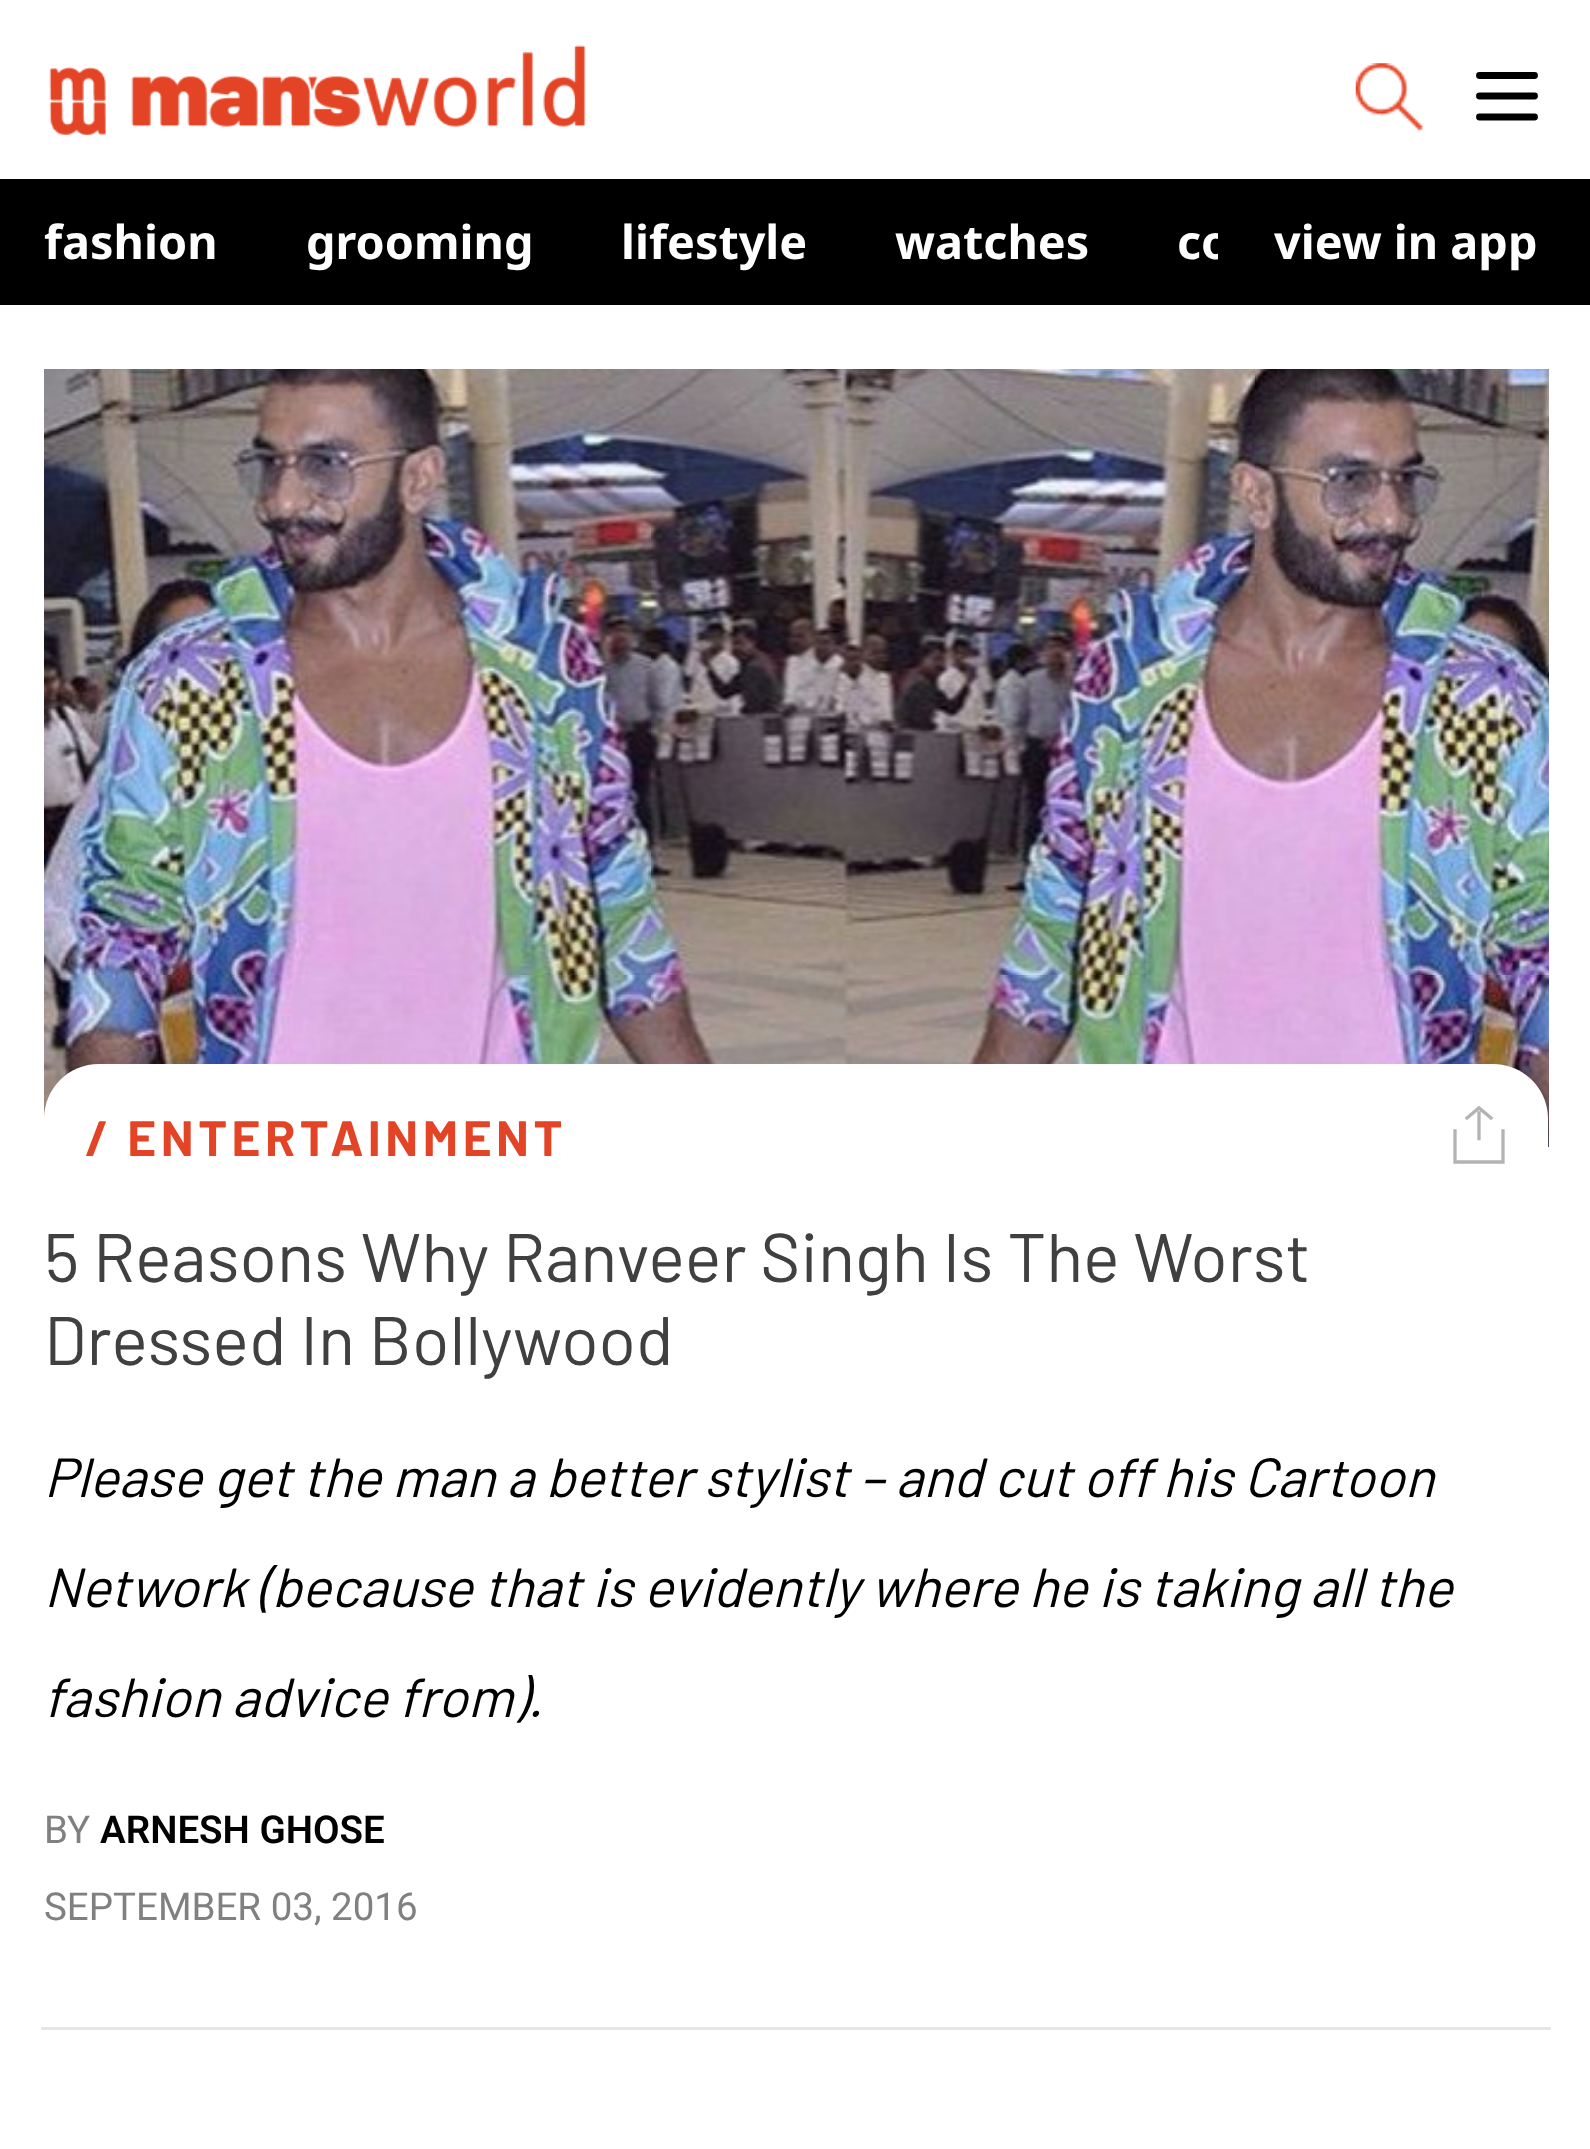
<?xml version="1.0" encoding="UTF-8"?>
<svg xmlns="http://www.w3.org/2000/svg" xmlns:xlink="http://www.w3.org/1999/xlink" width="1590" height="2149">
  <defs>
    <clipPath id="clip1"><rect y="184" width="1218" height="116" /></clipPath>
  </defs>
  <rect width="100%" height="100%" fill="#ffffff" />
  <image x="49" y="45" width="537" height="90" xlink:href="image1.png" />
  <image x="1355" y="63" width="70" height="69" xlink:href="image2.png" />
  <path d="M 1479.5 75.5 h 55 m -55 20.5 h 55 m -55 21 h 55" fill="none" stroke="#000000" stroke-width="6.9" stroke-linecap="round" stroke-linejoin="round" />
  <rect y="179" width="1590" height="126" fill="#000000" />
  <image x="44" y="369" width="1505" height="778" xlink:href="image3.png" />
  <path d="M 99 1064 h 1394 c 30.5 0 55 24.5 55 55 v 94 h -1504 v -94 c 0 -30.5 24.5 -55 55 -55 z" fill="#ffffff" />
  <path d="M 1455 1131 v 31 h 48 v -31 m -24 -18 v 25.5 m -12 -20.5 l 12 -10 l 12 10" fill="none" stroke="#b3b3b3" stroke-width="3.3" stroke-linecap="square" />
  <rect x="41" y="2027" width="1510" height="3" fill="#e5e7eb" />
  <text x="44" y="259" style="font-family: Noto Sans; font-size: 46.75px; font-weight: bold; fill: #ffffff">fashion</text>
  <text x="306" y="259" style="font-family: Noto Sans; font-size: 46.75px; font-weight: bold; fill: #ffffff">grooming</text>
  <text x="621" y="259" style="font-family: Noto Sans; font-size: 46.75px; font-weight: bold; fill: #ffffff">lifestyle</text>
  <text x="895" y="259" style="font-family: Noto Sans; font-size: 46.75px; font-weight: bold; fill: #ffffff">watches</text>
  <g clip-path="url(#clip1)">
    <text x="1177" y="259" style="font-family: Noto Sans; font-size: 46.75px; font-weight: bold; fill: #ffffff">co</text>
  </g>
  <text x="1274" y="259" style="font-family: Noto Sans; font-size: 46.75px; font-weight: bold; fill: #ffffff">view in app</text>
  <text x="85" y="1156" style="font-family: Barlow; font-size: 49.5px; font-weight: bold; letter-spacing: 4.5px; fill: #e34426">/ ENTERTAINMENT</text>
  <text x="44" y="1282" style="font-family: Barlow; font-size: 68.75px; fill: #404040">5 Reasons Why Ranveer Singh Is The Worst</text>
  <text x="44" y="1365" style="font-family: Barlow; font-size: 68.75px; fill: #404040">Dressed In Bollywood</text>
  <text x="44" y="1497" style="font-family: Barlow; font-size: 55px; font-style: italic; fill: #000000">Please get the man a better stylist – and cut off his Cartoon</text>
  <text x="44" y="1607" style="font-family: Barlow; font-size: 55px; font-style: italic; fill: #000000">Network (because that is evidently where he is taking all the</text>
  <text x="44" y="1717" style="font-family: Barlow; font-size: 55px; font-style: italic; fill: #000000">fashion advice from).</text>
  <text x="44" y="1843" style="font-family: Roboto; font-size: 38.5px; fill: #808080">BY</text>
  <text x="100" y="1843" style="font-family: Roboto; font-size: 38.5px; font-weight: 600; fill: #000000">ARNESH GHOSE</text>
  <text x="44" y="1920" style="font-family: Roboto; font-size: 38.5px; fill: #808080">SEPTEMBER 03, 2016</text>
</svg>
